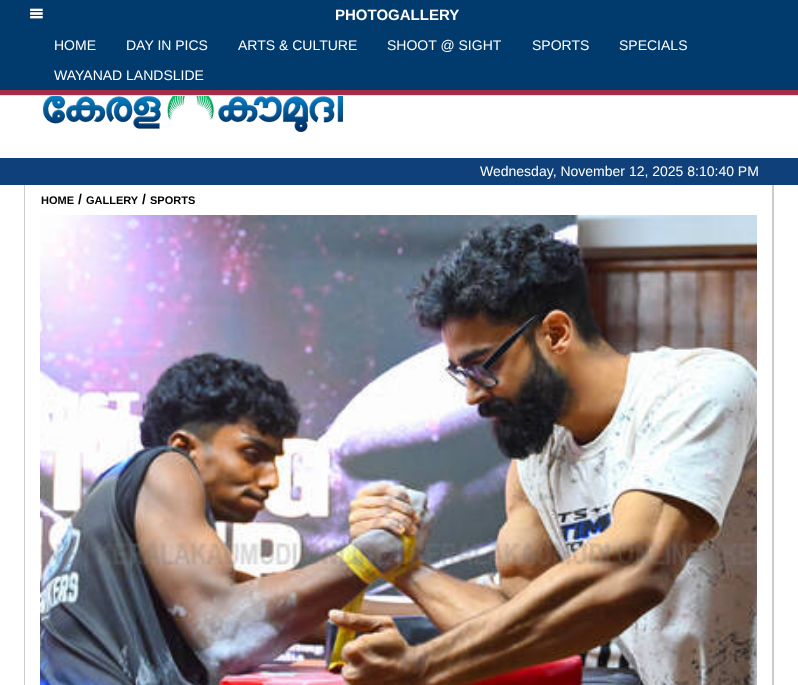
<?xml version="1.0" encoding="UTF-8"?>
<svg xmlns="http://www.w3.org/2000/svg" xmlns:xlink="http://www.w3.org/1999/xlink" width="798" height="685">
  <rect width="100%" height="100%" fill="#ffffff" />
  <rect width="798" height="90" fill="#013a6d" />
  <rect y="95" width="798" height="1" fill="#e7e7e7" />
  <image x="30" y="8" width="13" height="11" xlink:href="image1.png" />
  <rect y="90" width="798" height="5" fill="#a52b46" />
  <image x="43" y="96" width="300" height="36" xlink:href="image2.png" />
  <rect y="158" width="798" height="27" fill="#0f4079" />
  <rect x="772" y="185" width="2" height="500" fill="#cccccc" />
  <rect x="24" y="185" width="1" height="500" fill="#cccccc" />
  <image x="40" y="215" width="717" height="470" xlink:href="image3.png" />
  <text x="335" y="20" style="font-family: Liberation Sans; font-size: 15px; font-weight: bold; fill: #ffffff">PHOTOGALLERY</text>
  <text x="54" y="50" style="font-family: Liberation Sans; font-size: 14px; fill: #ffffff">HOME</text>
  <text x="126" y="50" style="font-family: Liberation Sans; font-size: 14px; fill: #ffffff">DAY IN PICS</text>
  <text x="238" y="50" style="font-family: Liberation Sans; font-size: 14px; fill: #ffffff">ARTS &amp; CULTURE</text>
  <text x="387" y="50" style="font-family: Liberation Sans; font-size: 14px; fill: #ffffff">SHOOT @ SIGHT</text>
  <text x="532" y="50" style="font-family: Liberation Sans; font-size: 14px; fill: #ffffff">SPORTS</text>
  <text x="619" y="50" style="font-family: Liberation Sans; font-size: 14px; fill: #ffffff">SPECIALS</text>
  <text x="54" y="80" style="font-family: Liberation Sans; font-size: 14px; fill: #ffffff">WAYANAD LANDSLIDE</text>
  <text x="480" y="176" style="font-family: Liberation Sans; font-size: 14px; fill: #ffffff">Wednesday, November 12, 2025 8:10:40 PM</text>
  <text x="41" y="204" style="font-family: Liberation Sans; font-size: 11px; font-weight: bold; fill: #000000">HOME</text>
  <text x="78" y="204" style="font-family: Liberation Sans; font-size: 14px; font-weight: bold; fill: #000000">/</text>
  <text x="86" y="204" style="font-family: Liberation Sans; font-size: 11px; font-weight: bold; fill: #000000">GALLERY</text>
  <text x="142" y="204" style="font-family: Liberation Sans; font-size: 14px; font-weight: bold; fill: #000000">/</text>
  <text x="150" y="204" style="font-family: Liberation Sans; font-size: 11px; font-weight: bold; fill: #000000">SPORTS</text>
</svg>
